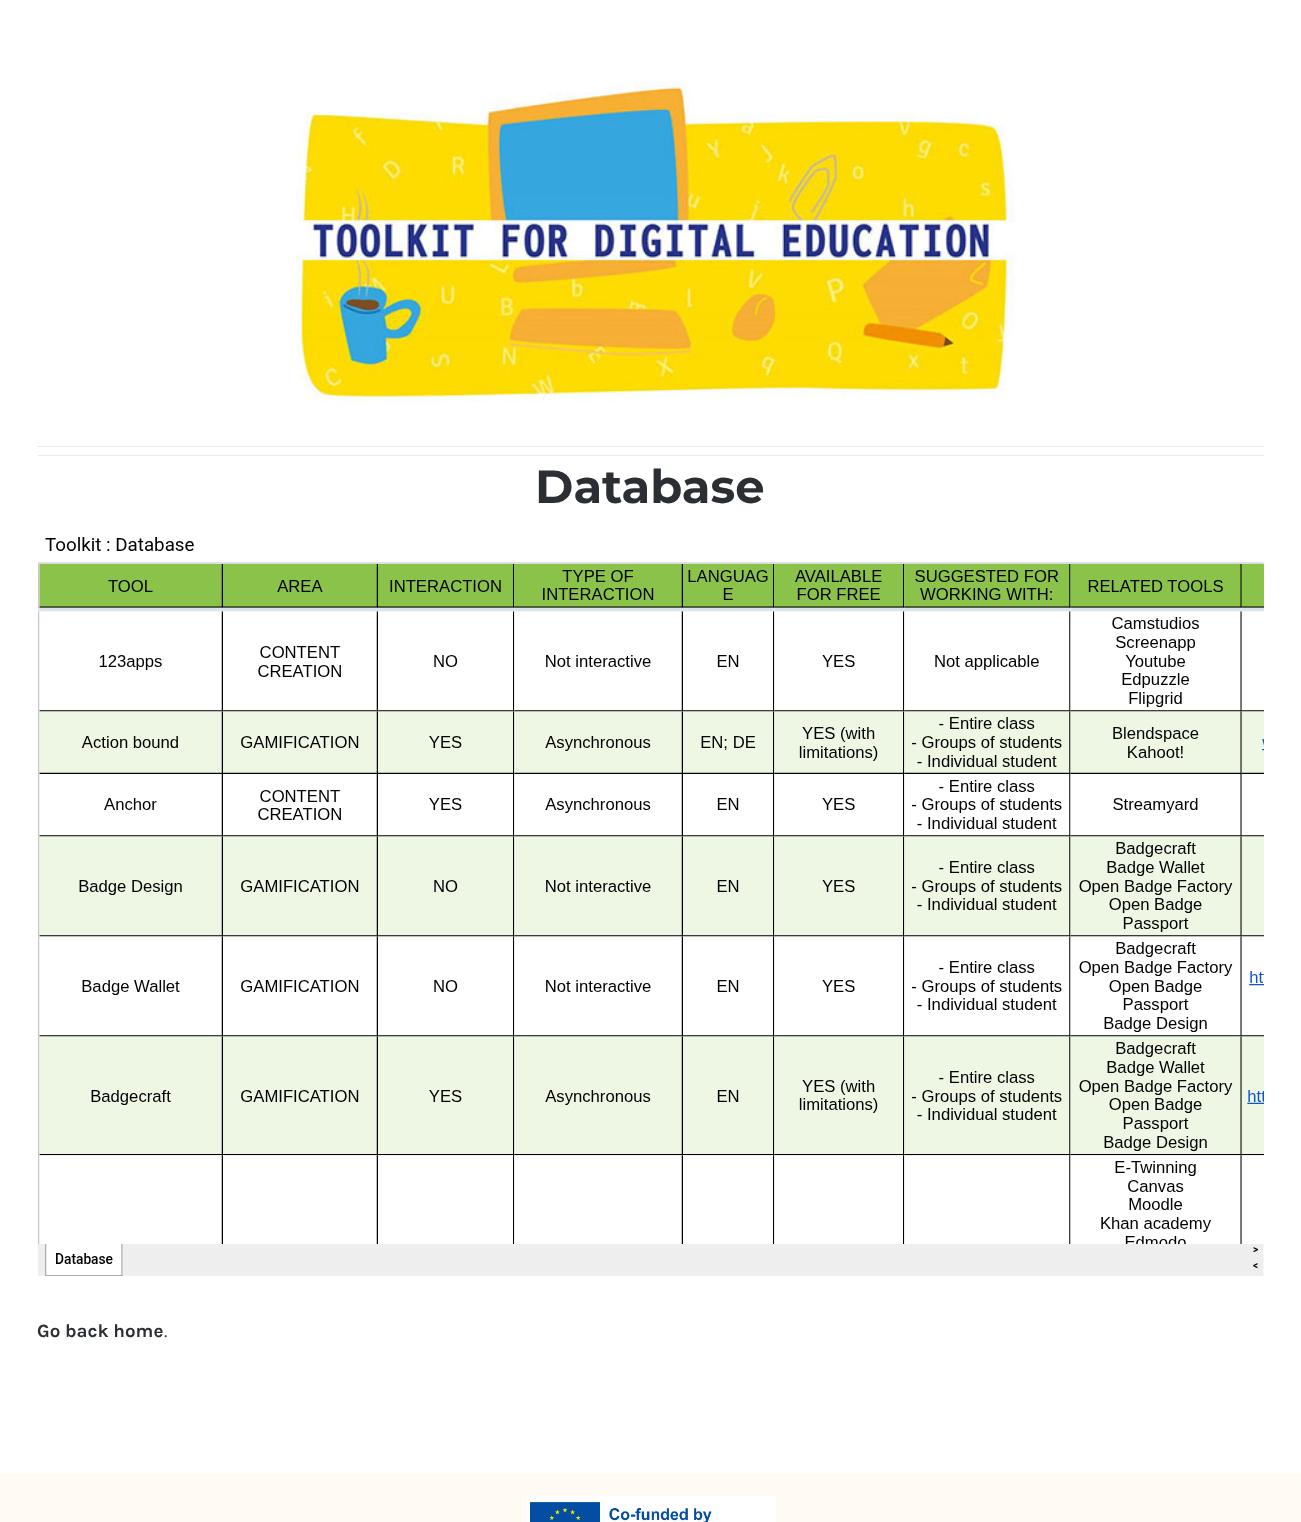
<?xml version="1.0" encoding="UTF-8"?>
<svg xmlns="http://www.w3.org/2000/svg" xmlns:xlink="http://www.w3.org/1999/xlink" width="1301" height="1522">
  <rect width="100%" height="100%" fill="#ffffff" />
  <image x="295" y="81" width="720" height="324" xlink:href="image1.png" />
  <rect x="38" y="446" width="1226" height="1" fill="#eaeaea" />
  <rect x="38" y="455" width="1226" height="1" fill="#eaeaea" />
  <image x="37" y="537" width="1227" height="739" xlink:href="image2.png" />
  <rect y="1473" width="1301" height="49" fill="#fffaf2" />
  <image x="526" y="1496" width="250" height="26" xlink:href="image3.png" />
  <text x="535" y="503" style="font-family: Montserrat; font-size: 46.5px; font-weight: 100; fill: #2b2e32">Database</text>
  <text x="37" y="1337" style="font-family: Karla; font-size: 18.75px; font-weight: bold; fill: #2b2e32">Go back home</text>
  <text x="164" y="1337" style="font-family: Karla; font-size: 18.75px; fill: #494949">.</text>
</svg>
